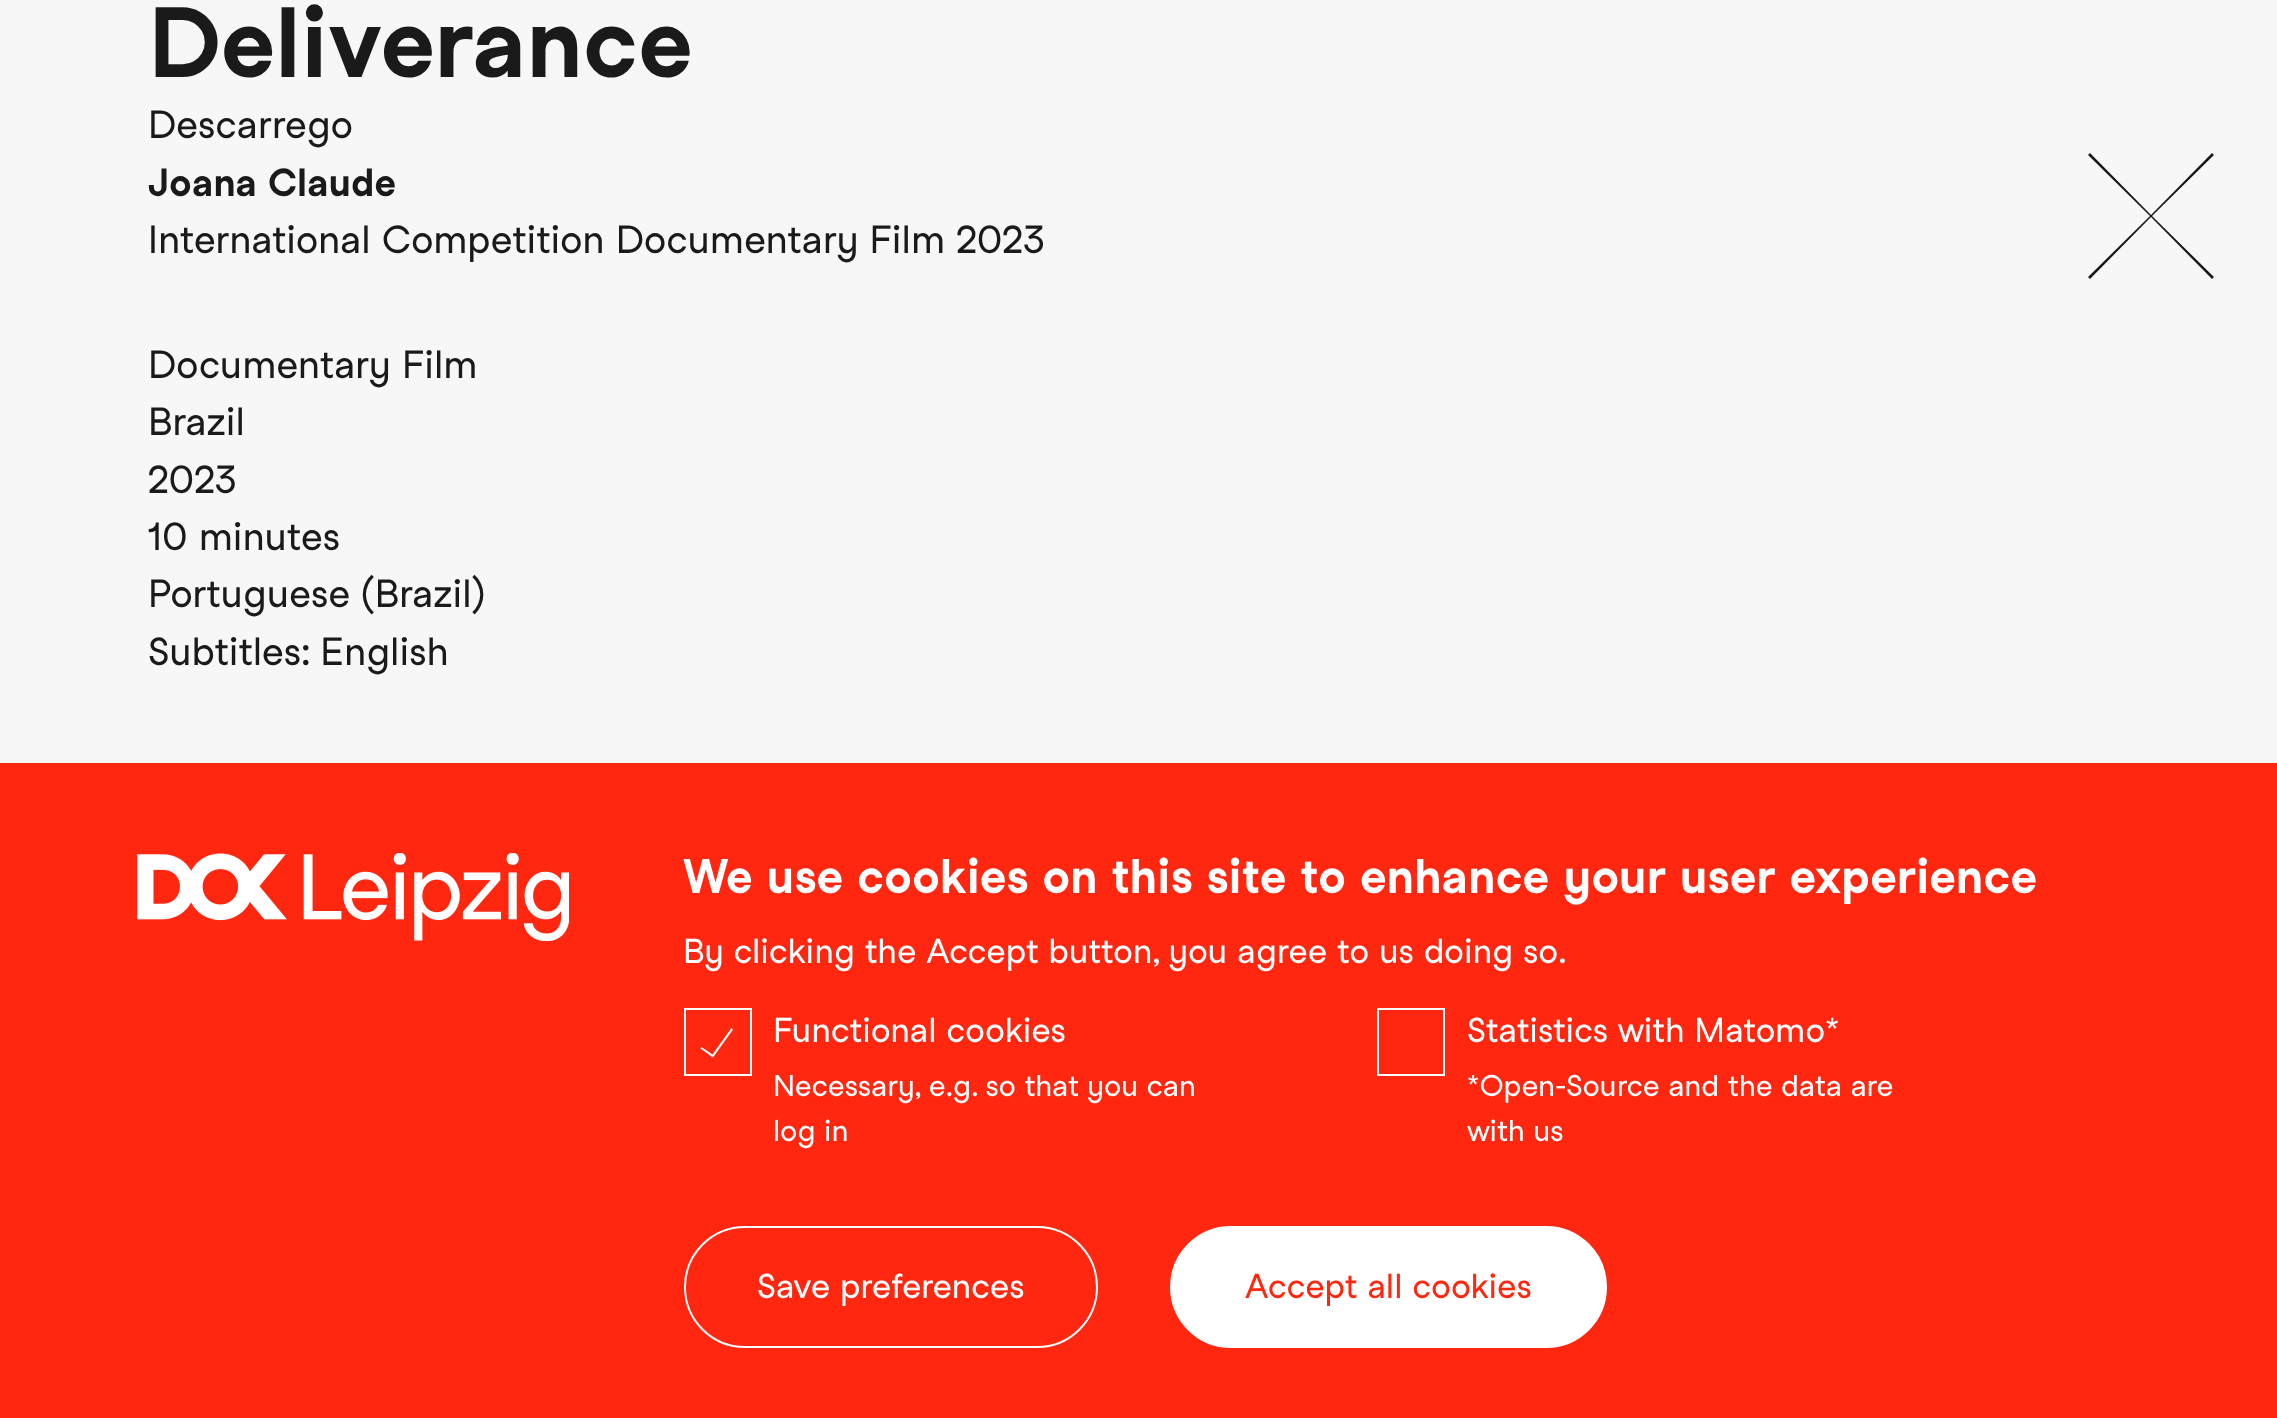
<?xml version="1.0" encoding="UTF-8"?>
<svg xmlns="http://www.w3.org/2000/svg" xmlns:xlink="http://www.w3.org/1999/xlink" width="2277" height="1418">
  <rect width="100%" height="100%" fill="#f7f7f7" />
  <path d="M 2212 153 l 2 2 l -62 61 l 62 61 l -2 2 l -61 -62 l -61 62 l -2 -2 l 62 -61 l -62 -61 l 2 -2 l 61 62 z" fill="#1a1a1a" fill-rule="evenodd" />
  <rect y="763" width="2277" height="655" fill="#ff2710" />
  <image x="137" y="853" width="432" height="88" xlink:href="image1.png" />
  <rect x="685" y="1009" width="66" height="66" fill="none" stroke="#ffffff" stroke-width="2" />
  <path d="M 713 1057.5 l -12.5 -9 l 1 -1.5 l 11 7.5 l 19 -26.5 l 1.5 1.5 z" fill="#ffffff" fill-rule="evenodd" />
  <rect x="1378" y="1009" width="66" height="66" fill="none" stroke="#ffffff" stroke-width="2" />
  <rect x="685" y="1227" width="412" height="120" rx="60" fill="none" stroke="#ffffff" stroke-width="2" />
  <rect x="1171" y="1227" width="435" height="120" rx="60" fill="#ffffff" stroke="#ffffff" stroke-width="2" />
  <text x="148" y="77" style="font-family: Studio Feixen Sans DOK; font-size: 96.75px; font-weight: bold; fill: #1a1a1a">Deliverance</text>
  <text x="148" y="138" style="font-family: Studio Feixen Sans DOK; font-size: 38.25px; fill: #1a1a1a">Descarrego</text>
  <text x="148" y="196" style="font-family: Studio Feixen Sans DOK; font-size: 38.25px; font-weight: bold; fill: #1a1a1a">Joana Claude</text>
  <text x="148" y="253" style="font-family: Studio Feixen Sans DOK; font-size: 38.25px; fill: #1a1a1a">International Competition Documentary Film 2023</text>
  <text x="148" y="378" style="font-family: Studio Feixen Sans DOK; font-size: 38.25px; fill: #1a1a1a">Documentary Film</text>
  <text x="148" y="435" style="font-family: Studio Feixen Sans DOK; font-size: 38.25px; fill: #1a1a1a">Brazil</text>
  <text x="148" y="493" style="font-family: Studio Feixen Sans DOK; font-size: 38.25px; fill: #1a1a1a">2023</text>
  <text x="148" y="550" style="font-family: Studio Feixen Sans DOK; font-size: 38.25px; fill: #1a1a1a">10 minutes</text>
  <text x="148" y="607" style="font-family: Studio Feixen Sans DOK; font-size: 38.25px; fill: #1a1a1a">Portuguese (Brazil)</text>
  <text x="148" y="665" style="font-family: Studio Feixen Sans DOK; font-size: 38.25px; fill: #1a1a1a">Subtitles: English</text>
  <text x="683" y="893" style="font-family: Studio Feixen Sans DOK; font-size: 47.25px; font-weight: bold; fill: #ffffff">We use cookies on this site to enhance your user experience</text>
  <text x="683" y="963" style="font-family: Studio Feixen Sans DOK; font-size: 33.75px; fill: #ffffff">By clicking the Accept button, you agree to us doing so.</text>
  <text x="773" y="1042" style="font-family: Studio Feixen Sans DOK; font-size: 33.75px; fill: #ffffff">Functional cookies</text>
  <text x="773" y="1096" style="font-family: Studio Feixen Sans DOK; font-size: 29.25px; fill: #ffffff">Necessary, e.g. so that you can</text>
  <text x="773" y="1141" style="font-family: Studio Feixen Sans DOK; font-size: 29.25px; fill: #ffffff">log in</text>
  <text x="1467" y="1042" style="font-family: Studio Feixen Sans DOK; font-size: 33.75px; fill: #ffffff">Statistics with Matomo*</text>
  <text x="1467" y="1096" style="font-family: Studio Feixen Sans DOK; font-size: 29.25px; fill: #ffffff">*Open-Source and the data are</text>
  <text x="1467" y="1141" style="font-family: Studio Feixen Sans DOK; font-size: 29.25px; fill: #ffffff">with us</text>
  <text x="757" y="1298" style="font-family: Studio Feixen Sans DOK; font-size: 33.75px; fill: #ffffff">Save preferences</text>
  <text x="1245" y="1298" style="font-family: Studio Feixen Sans DOK; font-size: 33.75px; fill: #ff2710">Accept all cookies</text>
</svg>
